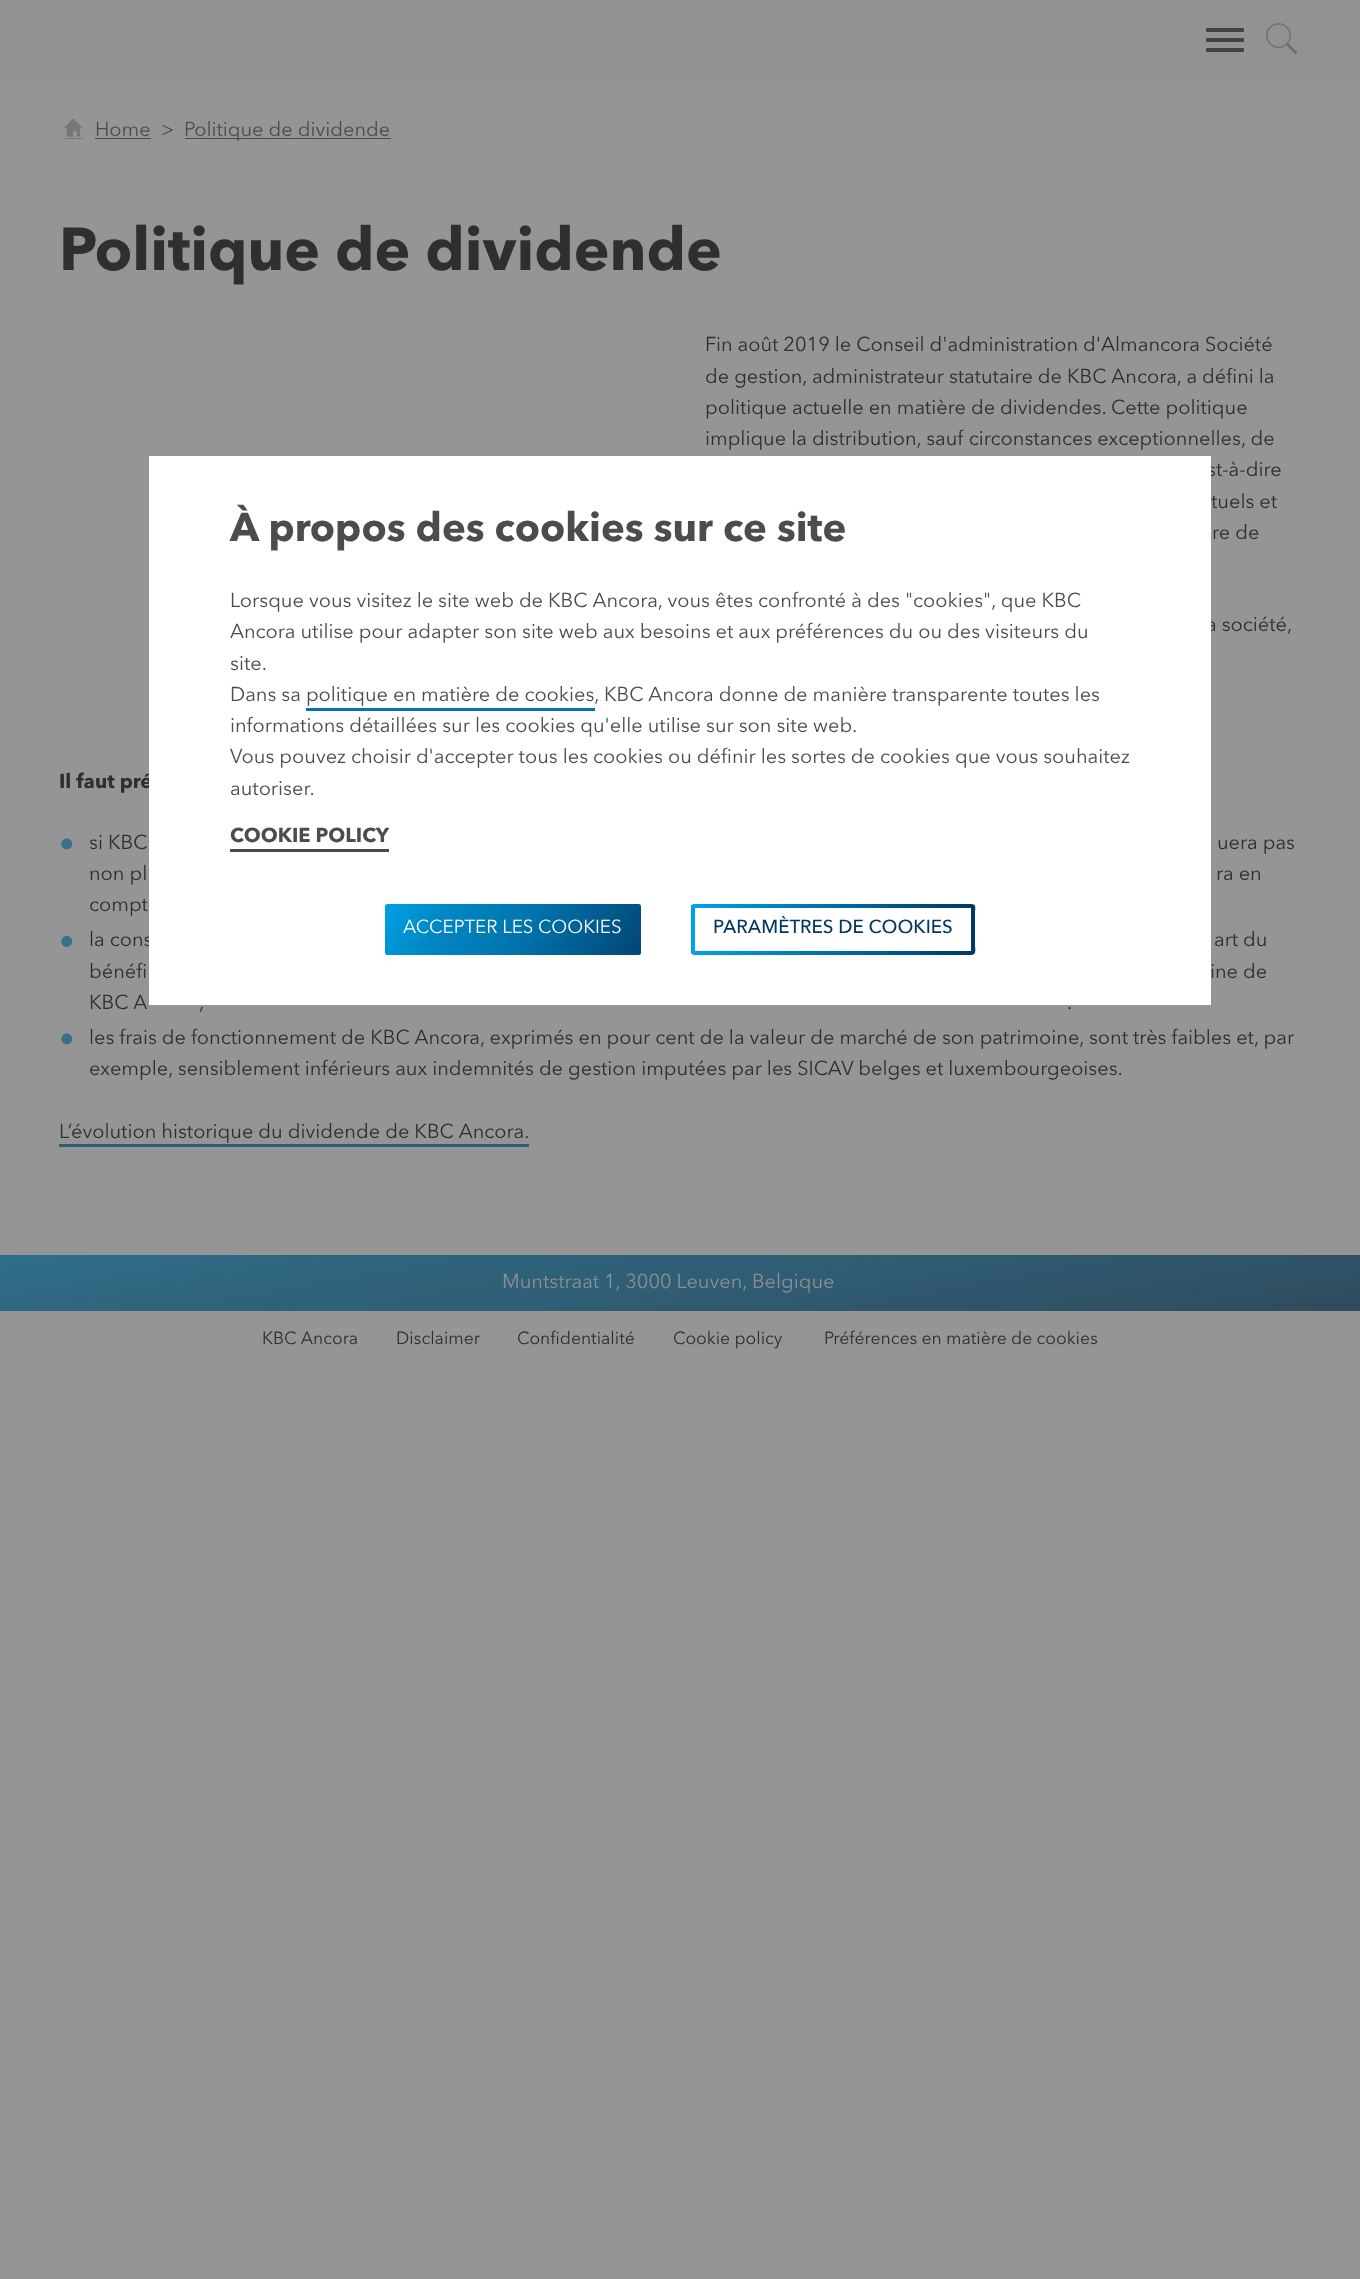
<?xml version="1.0" encoding="UTF-8"?>
<svg xmlns="http://www.w3.org/2000/svg" xmlns:xlink="http://www.w3.org/1999/xlink" width="1360" height="2279">
  <defs>
    <linearGradient id="g1" gradientUnits="userSpaceOnUse" x1="712" y1="1464" x2="654" y2="1139"><stop offset="0" stop-color="#304657" /><stop offset="0.53" stop-color="#2f5d74" /><stop offset="0.8" stop-color="#2f657e" /><stop offset="1" stop-color="#2f6f8a" /></linearGradient>
    <linearGradient id="g2" gradientUnits="userSpaceOnUse" x1="695" y1="906" x2="971" y2="906"><stop offset="0" stop-color="#00a1e5" /><stop offset="1" stop-color="#023964" /></linearGradient>
    <linearGradient id="g3" gradientUnits="userSpaceOnUse" x1="695" y1="953" x2="971" y2="953"><stop offset="0" stop-color="#00a1e5" /><stop offset="1" stop-color="#023964" /></linearGradient>
    <linearGradient id="g4" gradientUnits="userSpaceOnUse" x1="644" y1="1010" x2="409" y2="865"><stop offset="0" stop-color="#023964" /><stop offset="0.53" stop-color="#0174ae" /><stop offset="0.8" stop-color="#0088c5" /><stop offset="1" stop-color="#00a1e5" /></linearGradient>
  </defs>
  <rect width="100%" height="100%" fill="#959595" />
  <rect width="1360" height="79" fill="#919292" />
  <rect x="1206" y="38" width="38" height="4" rx="1" fill="#434343" />
  <rect x="1206" y="28" width="38" height="4" rx="1" fill="#434343" />
  <rect x="1206" y="48" width="38" height="4" rx="1" fill="#434343" />
  <image x="1266" y="23" width="32" height="32" xlink:href="image1.png" />
  <image x="64" y="118" width="19" height="19" xlink:href="image2.png" />
  <rect x="95" y="138" width="56" height="1" fill="#4c4c4c" />
  <rect x="64" y="138" width="19" height="1" fill="#787878" />
  <rect x="185" y="138" width="206" height="1" fill="#4c4c4c" />
  <image x="61" y="838" width="12" height="12" xlink:href="image3.png" />
  <image x="61" y="935" width="12" height="12" xlink:href="image4.png" />
  <image x="61" y="1033" width="12" height="12" xlink:href="image3.png" />
  <rect x="59" y="1144" width="470" height="3" fill="#2f5d74" />
  <rect y="1255" width="1360" height="56" fill="url(#g1)" />
  <text x="95" y="136" style="font-family: Avenir Next; font-size: 20px; fill: #4c4c4c">Home</text>
  <text x="161" y="136" style="font-family: Avenir Next; font-size: 20px; fill: #4c4c4c">&gt;</text>
  <text x="184" y="136" style="font-family: Avenir Next; font-size: 20px; fill: #4c4c4c">Politique de dividende</text>
  <text x="59" y="270" style="font-family: Avenir Next; font-size: 60px; font-weight: bold; fill: #2f2f2f">Politique de dividende</text>
  <text x="705" y="351" style="font-family: Avenir Next; font-size: 20px; fill: #2f2f2f">Fin août 2019 le Conseil d'administration d'Almancora Société</text>
  <text x="705" y="383" style="font-family: Avenir Next; font-size: 20px; fill: #2f2f2f">de gestion, administrateur statutaire de KBC Ancora, a défini la</text>
  <text x="705" y="414" style="font-family: Avenir Next; font-size: 20px; fill: #2f2f2f">politique actuelle en matière de dividendes. Cette politique</text>
  <text x="705" y="445" style="font-family: Avenir Next; font-size: 20px; fill: #2f2f2f">implique la distribution, sauf circonstances exceptionnelles, de</text>
  <text x="1207" y="476" style="font-family: Avenir Next; font-size: 20px; fill: #2f2f2f">st-à-dire</text>
  <text x="1211" y="508" style="font-family: Avenir Next; font-size: 20px; fill: #2f2f2f">tuels et</text>
  <text x="1212" y="539" style="font-family: Avenir Next; font-size: 20px; fill: #2f2f2f">re de</text>
  <text x="1206" y="631" style="font-family: Avenir Next; font-size: 20px; fill: #2f2f2f">a société,</text>
  <text x="59" y="788" style="font-family: Avenir Next; font-size: 20px; font-weight: bold; fill: #2f2f2f">Il faut pré</text>
  <text x="89" y="849" style="font-family: Avenir Next; font-size: 20px; fill: #2f2f2f">si KBC</text>
  <text x="1217" y="849" style="font-family: Avenir Next; font-size: 20px; fill: #2f2f2f">uera pas</text>
  <text x="89" y="880" style="font-family: Avenir Next; font-size: 20px; fill: #2f2f2f">non pl</text>
  <text x="1216" y="880" style="font-family: Avenir Next; font-size: 20px; fill: #2f2f2f">ra en</text>
  <text x="89" y="911" style="font-family: Avenir Next; font-size: 20px; fill: #2f2f2f">compt</text>
  <text x="89" y="946" style="font-family: Avenir Next; font-size: 20px; fill: #2f2f2f">la cons</text>
  <rect x="149" y="456" width="1062" height="549" fill="#ffffff" />
  <text x="713" y="933" style="font-family: Avenir Next; font-size: 18.75px; font-weight: 500; fill: #023964">PARAMÈTRES DE COOKIES</text>
  <path d="M 694 904 c -1 0 -2 1 -3 1 v 48 c 1 1 2 2 3 2 h 1 v -51 z" fill="#00a1e5" />
  <path d="M 971 955 v -51 c 6 0 4 4 4 10 v 30 c 0 5 2 11 -4 11 z" fill="#023964" />
  <rect x="695" y="904" width="276" height="4" fill="url(#g2)" />
  <rect x="695" y="951" width="276" height="4" fill="url(#g3)" />
  <rect x="385" y="904" width="256" height="51" rx="2.5" fill="url(#g4)" />
  <text x="403" y="933" style="font-family: Avenir Next; font-size: 18.75px; fill: #ffffff">ACCEPTER LES COOKIES</text>
  <text x="230" y="842" style="font-family: Avenir Next; font-size: 20px; font-weight: bold; fill: #4c4c4c">COOKIE POLICY</text>
  <rect x="230" y="849" width="159" height="3" fill="#4a4a4a" />
  <text x="230" y="795" style="font-family: Avenir Next; font-size: 20px; fill: #4c4c4c">autoriser.</text>
  <text x="230" y="763" style="font-family: Avenir Next; font-size: 20px; fill: #4c4c4c">Vous pouvez choisir d'accepter tous les cookies ou définir les sortes de cookies que vous souhaitez</text>
  <text x="230" y="732" style="font-family: Avenir Next; font-size: 20px; fill: #4c4c4c">informations détaillées sur les cookies qu'elle utilise sur son site web.</text>
  <rect x="306" y="708" width="289" height="3" fill="#0174ae" />
  <text x="230" y="701" style="font-family: Avenir Next; font-size: 20px; fill: #4c4c4c">Dans sa politique en matière de cookies, KBC Ancora donne de manière transparente toutes les</text>
  <text x="230" y="670" style="font-family: Avenir Next; font-size: 20px; fill: #4c4c4c">site.</text>
  <text x="230" y="638" style="font-family: Avenir Next; font-size: 20px; fill: #4c4c4c">Ancora utilise pour adapter son site web aux besoins et aux préférences du ou des visiteurs du</text>
  <text x="230" y="607" style="font-family: Avenir Next; font-size: 20px; fill: #4c4c4c">Lorsque vous visitez le site web de KBC Ancora, vous êtes confronté à des "cookies", que KBC</text>
  <text x="230" y="541" style="font-family: Avenir Next; font-size: 40px; font-weight: bold; fill: #4c4c4c">À propos des cookies sur ce site</text>
  <text x="1214" y="946" style="font-family: Avenir Next; font-size: 20px; fill: #2f2f2f">art du</text>
  <text x="89" y="978" style="font-family: Avenir Next; font-size: 20px; fill: #2f2f2f">bénéfi</text>
  <text x="1210" y="978" style="font-family: Avenir Next; font-size: 20px; fill: #2f2f2f">ine de</text>
  <text x="89" y="1009" style="font-family: Avenir Next; font-size: 20px; fill: #2f2f2f">KBC A</text>
  <text x="199" y="1009" style="font-family: Avenir Next; font-size: 20px; fill: #2f2f2f">,</text>
  <text x="1067" y="1009" style="font-family: Avenir Next; font-size: 20px; fill: #2f2f2f">.</text>
  <text x="89" y="1044" style="font-family: Avenir Next; font-size: 20px; fill: #2f2f2f">les frais de fonctionnement de KBC Ancora, exprimés en pour cent de la valeur de marché de son patrimoine, sont très faibles et, par</text>
  <text x="89" y="1075" style="font-family: Avenir Next; font-size: 20px; fill: #2f2f2f">exemple, sensiblement inférieurs aux indemnités de gestion imputées par les SICAV belges et luxembourgeoises.</text>
  <text x="59" y="1138" style="font-family: Avenir Next; font-size: 20px; fill: #2f2f2f">L’évolution historique du dividende de KBC Ancora.</text>
  <text x="502" y="1288" style="font-family: Avenir Next; font-size: 20px; fill: #8b8f92">Muntstraat 1, 3000 Leuven, Belgique</text>
  <text x="262" y="1344" style="font-family: Avenir Next; font-size: 17.5px; fill: #2f2f2f">KBC Ancora</text>
  <text x="396" y="1344" style="font-family: Avenir Next; font-size: 17.5px; fill: #2f2f2f">Disclaimer</text>
  <text x="517" y="1344" style="font-family: Avenir Next; font-size: 17.5px; fill: #2f2f2f">Confidentialité</text>
  <text x="673" y="1344" style="font-family: Avenir Next; font-size: 17.5px; fill: #2f2f2f">Cookie policy</text>
  <text x="824" y="1344" style="font-family: Avenir Next; font-size: 17.5px; fill: #2f2f2f">Préférences en matière de cookies</text>
</svg>
